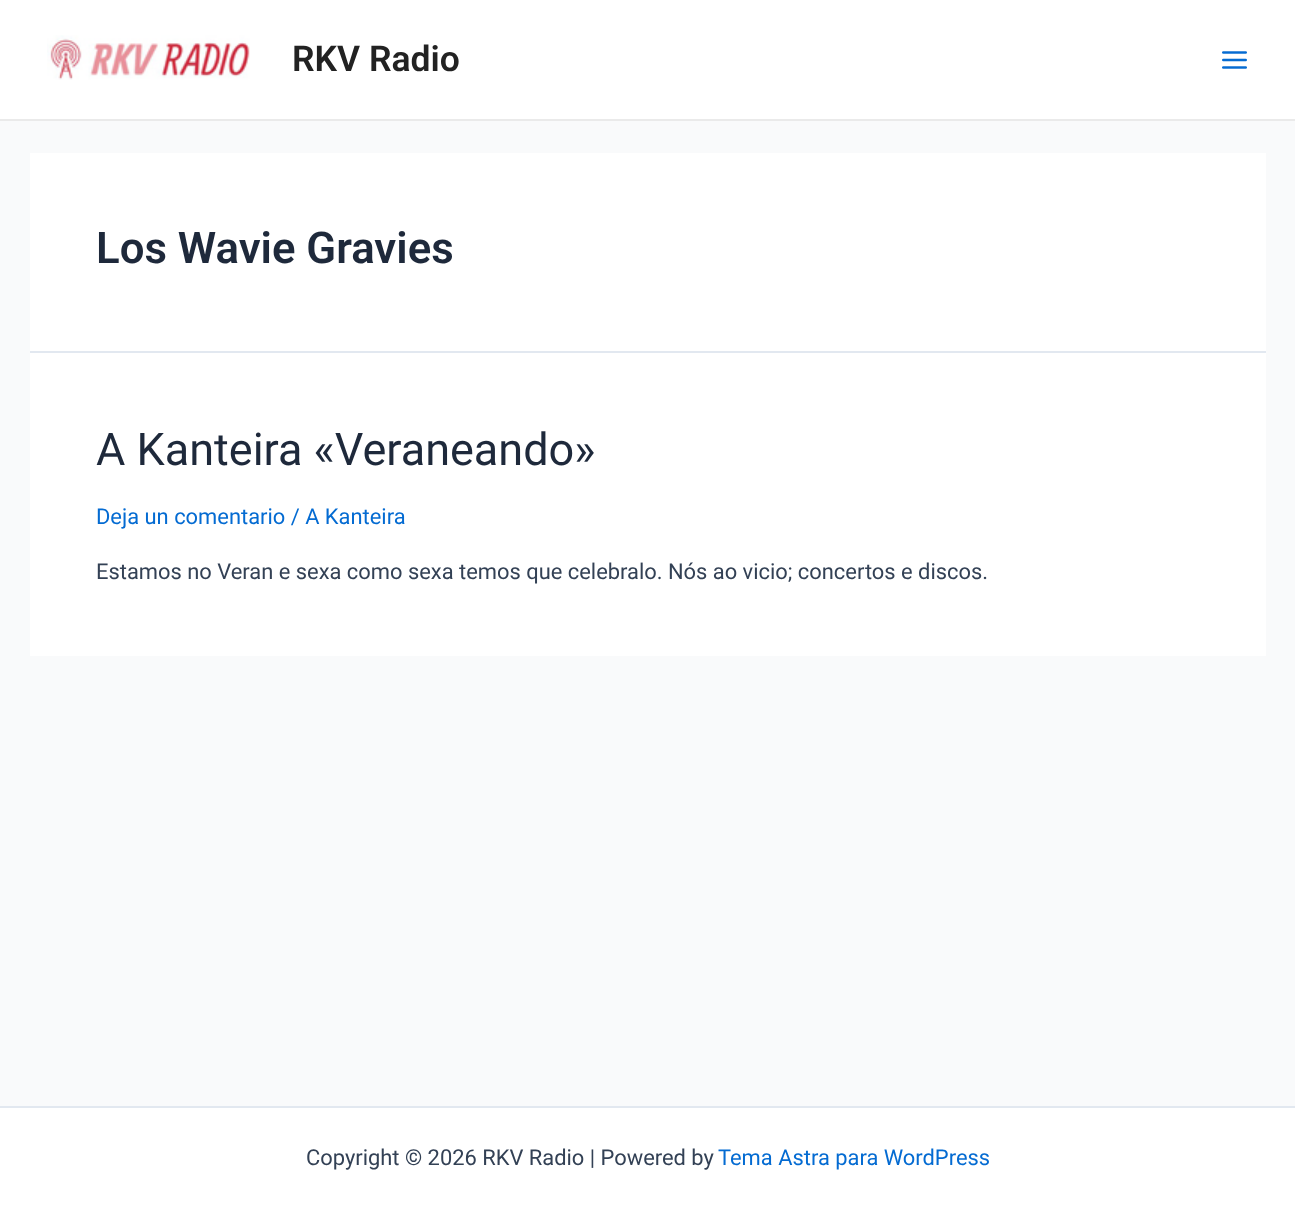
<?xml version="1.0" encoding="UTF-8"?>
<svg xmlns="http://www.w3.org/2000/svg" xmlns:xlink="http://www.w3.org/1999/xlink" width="1295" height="1225">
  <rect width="100%" height="100%" fill="#f9fafb" />
  <rect width="1295" height="119" fill="#ffffff" />
  <rect y="119" width="1295" height="2" fill="#eaeaea" />
  <image x="47" y="35" width="203" height="45" xlink:href="image1.png" />
  <image x="1222" y="51" width="25" height="18" xlink:href="image2.png" />
  <rect x="30" y="153" width="1236" height="198" fill="#ffffff" />
  <rect x="30" y="351" width="1236" height="2" fill="#e2e8f0" />
  <rect x="30" y="353" width="1236" height="303" fill="#ffffff" />
  <rect y="1108" width="1295" height="117" fill="#ffffff" />
  <rect y="1106" width="1295" height="2" fill="#e2e8f0" />
  <text x="292" y="71" style="font-family: Roboto; font-size: 35.5px; font-weight: 600; fill: #222222">RKV Radio</text>
  <text x="96" y="263" style="font-family: Roboto; font-size: 43.75px; font-weight: 600; fill: #1e293b">Los Wavie Gravies</text>
  <text x="96" y="465" style="font-family: Roboto; font-size: 45px; fill: #1e293b">A Kanteira «Veraneando»</text>
  <text x="96" y="524" style="font-family: Roboto; font-size: 21.9px; fill: #046bd2">Deja un comentario / A Kanteira</text>
  <text x="96" y="579" style="font-family: Roboto; font-size: 21.9px; fill: #334155">Estamos no Veran e sexa como sexa temos que celebralo. Nós ao vicio; concertos e discos.</text>
  <text x="306" y="1165" style="font-family: Roboto; font-size: 21.9px; fill: #334155">Copyright © 2026 RKV Radio | Powered by</text>
  <text x="718" y="1165" style="font-family: Roboto; font-size: 21.9px; fill: #046bd2">Tema Astra para WordPress</text>
</svg>
